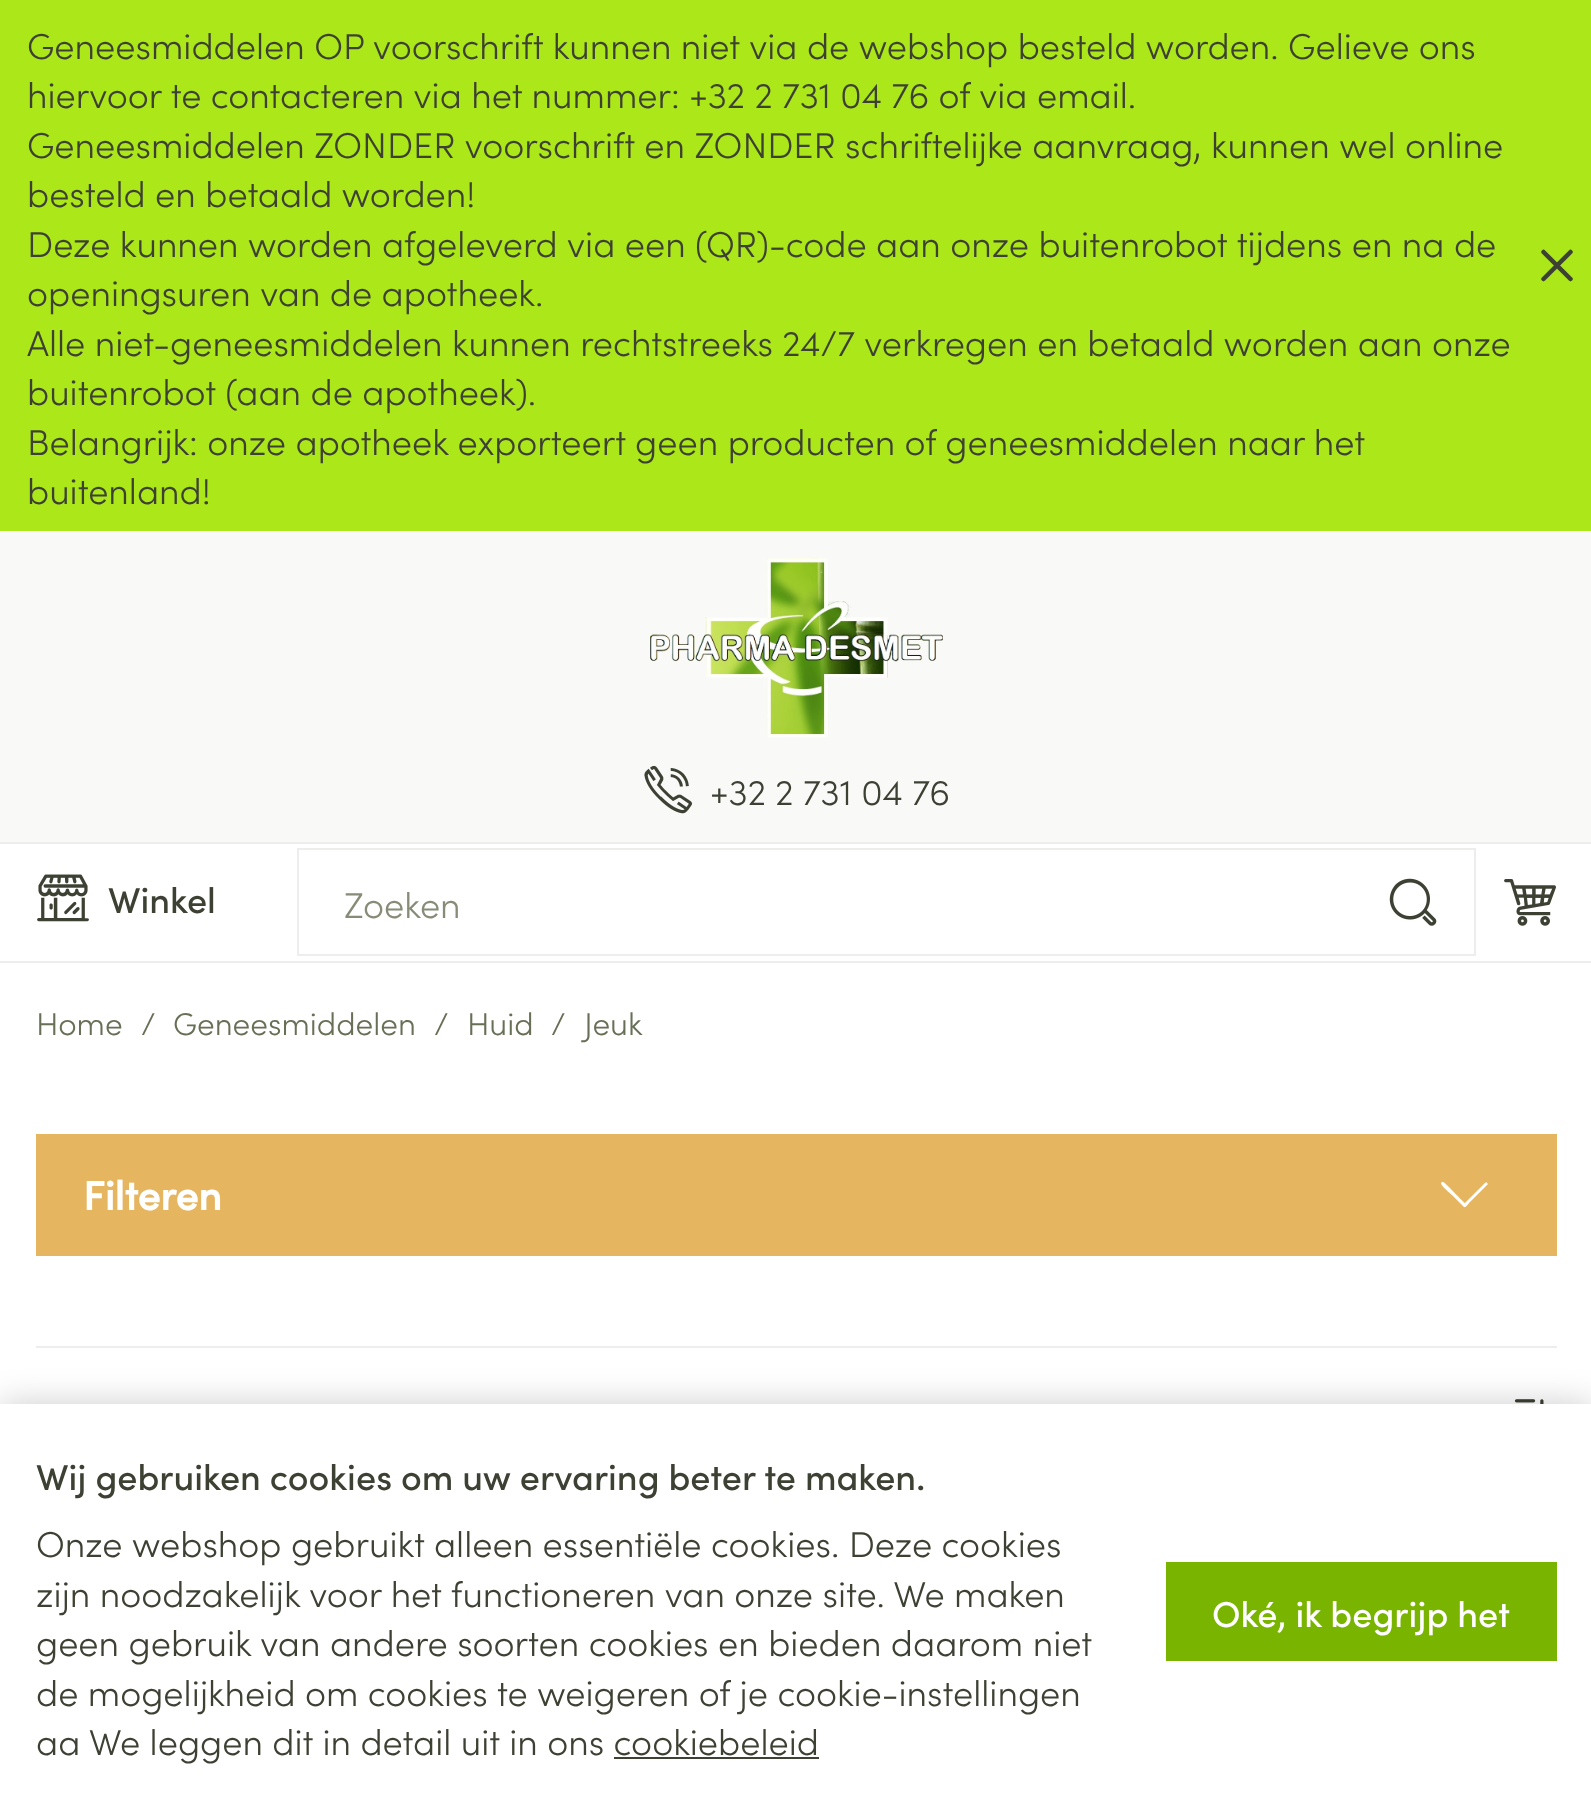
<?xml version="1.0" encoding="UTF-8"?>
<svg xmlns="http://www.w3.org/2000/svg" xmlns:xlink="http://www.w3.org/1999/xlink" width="1591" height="1817">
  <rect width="100%" height="100%" fill="#ffffff" />
  <rect width="1591" height="531" fill="#ace719" />
  <path d="M 1543.5 279 l 27 -27 m -27 0 l 27 27" fill="none" stroke="#3d4133" stroke-width="4.5" stroke-linecap="round" stroke-linejoin="round" />
  <rect y="531" width="1591" height="311" fill="#f9f9f8" />
  <image x="650" y="558" width="293" height="180" xlink:href="image1.png" />
  <image x="644" y="765" width="49" height="49" xlink:href="image2.png" />
  <rect y="842" width="1591" height="2" fill="#edeeeb" />
  <rect y="961" width="1591" height="2" fill="#edeeeb" />
  <image x="37" y="874" width="52" height="48" xlink:href="image3.png" />
  <rect x="298" y="849" width="1177" height="106" fill="none" stroke="#edeeeb" stroke-width="2" />
  <image x="1389" y="878" width="48" height="48" xlink:href="image4.png" />
  <image x="1504" y="879" width="52" height="47" xlink:href="image5.png" />
  <rect x="36" y="1134" width="1521" height="122" fill="#e6b560" />
  <path d="M 1487 1183 c 0 -1 -1 -1 -2 0 l -20 20 c -3 -2 -20 -21 -22 -21 c -7 0 7 11 10 14 l 11 11 c 2 1 5 -4 5 -4 l 19 -19 z" fill="#ffffff" />
  <rect x="36" y="1346" width="1521" height="2" fill="#edeeeb" />
  <image x="1514" y="1399" width="30" height="5" xlink:href="image6.png" />
  <rect y="1404" width="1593" height="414" fill="#000000" fill-opacity="0.2" filter="blur(17px)" />
  <rect y="1404" width="1591" height="413" fill="#ffffff" />
  <rect x="614" y="1757" width="205" height="2" fill="#3d4133" />
  <rect x="1166" y="1562" width="391" height="99" fill="#79b401" />
  <text x="27" y="59" style="font-family: Sofia; font-size: 36px; font-weight: 300; fill: #3d4133">Geneesmiddelen OP voorschrift kunnen niet via de webshop besteld worden. Gelieve ons</text>
  <text x="27" y="108" style="font-family: Sofia; font-size: 36px; font-weight: 300; fill: #3d4133">hiervoor te contacteren via het nummer: +32 2 731 04 76 of via email.</text>
  <text x="27" y="158" style="font-family: Sofia; font-size: 36px; font-weight: 300; fill: #3d4133">Geneesmiddelen ZONDER voorschrift en ZONDER schriftelijke aanvraag, kunnen wel online</text>
  <text x="27" y="207" style="font-family: Sofia; font-size: 36px; font-weight: 300; fill: #3d4133">besteld en betaald worden!</text>
  <text x="27" y="257" style="font-family: Sofia; font-size: 36px; font-weight: 300; fill: #3d4133">Deze kunnen worden afgeleverd via een (QR)-code aan onze buitenrobot tijdens en na de</text>
  <text x="27" y="306" style="font-family: Sofia; font-size: 36px; font-weight: 300; fill: #3d4133">openingsuren van de apotheek.</text>
  <text x="27" y="356" style="font-family: Sofia; font-size: 36px; font-weight: 300; fill: #3d4133">Alle niet-geneesmiddelen kunnen rechtstreeks 24/7 verkregen en betaald worden aan onze</text>
  <text x="27" y="405" style="font-family: Sofia; font-size: 36px; font-weight: 300; fill: #3d4133">buitenrobot (aan de apotheek).</text>
  <text x="27" y="455" style="font-family: Sofia; font-size: 36px; font-weight: 300; fill: #3d4133">Belangrijk: onze apotheek exporteert geen producten of geneesmiddelen naar het</text>
  <text x="27" y="504" style="font-family: Sofia; font-size: 36px; font-weight: 300; fill: #3d4133">buitenland!</text>
  <text x="710" y="805" style="font-family: Sofia; font-size: 36px; font-weight: 300; fill: #3d4133">+32 2 731 04 76</text>
  <text x="108" y="913" style="font-family: Sofia; font-size: 36px; font-weight: 500; fill: #3d4133">Winkel</text>
  <text x="344" y="918" style="font-family: Sofia; font-size: 36px; font-weight: 300; fill: #868c77">Zoeken</text>
  <text x="36" y="1035" style="font-family: Sofia; font-size: 31.5px; font-weight: 300; fill: #686f57">Home</text>
  <text x="141" y="1035" style="font-family: Sofia; font-size: 31.5px; font-weight: 300; fill: #686f57">/</text>
  <text x="173" y="1035" style="font-family: Sofia; font-size: 31.5px; font-weight: 300; fill: #686f57">Geneesmiddelen</text>
  <text x="434" y="1035" style="font-family: Sofia; font-size: 31.5px; font-weight: 300; fill: #686f57">/</text>
  <text x="467" y="1035" style="font-family: Sofia; font-size: 31.5px; font-weight: 300; fill: #686f57">Huid</text>
  <text x="551" y="1035" style="font-family: Sofia; font-size: 31.5px; font-weight: 300; fill: #686f57">/</text>
  <text x="584" y="1035" style="font-family: Sofia; font-size: 31.5px; font-weight: 300; fill: #686f57">Jeuk</text>
  <text x="83" y="1210" style="font-family: Sofia; font-size: 40.5px; font-weight: bold; fill: #ffffff">Filteren</text>
  <text x="36" y="1490" style="font-family: Sofia; font-size: 36px; font-weight: 500; fill: #3d4133">Wij gebruiken cookies om uw ervaring beter te maken.</text>
  <text x="36" y="1557" style="font-family: Sofia; font-size: 36px; font-weight: 300; fill: #3d4133">Onze webshop gebruikt alleen essentiële cookies. Deze cookies</text>
  <text x="36" y="1607" style="font-family: Sofia; font-size: 36px; font-weight: 300; fill: #3d4133">zijn noodzakelijk voor het functioneren van onze site. We maken</text>
  <text x="36" y="1656" style="font-family: Sofia; font-size: 36px; font-weight: 300; fill: #3d4133">geen gebruik van andere soorten cookies en bieden daarom niet</text>
  <text x="36" y="1706" style="font-family: Sofia; font-size: 36px; font-weight: 300; fill: #3d4133">de mogelijkheid om cookies te weigeren of je cookie-instellingen</text>
  <text x="36" y="1755" style="font-family: Sofia; font-size: 36px; font-weight: 300; fill: #3d4133">aa We leggen dit in detail uit in ons cookiebeleid</text>
  <text x="1212" y="1627" style="font-family: Sofia; font-size: 36px; font-weight: 500; fill: #ffffff">Oké, ik begrijp het</text>
</svg>
